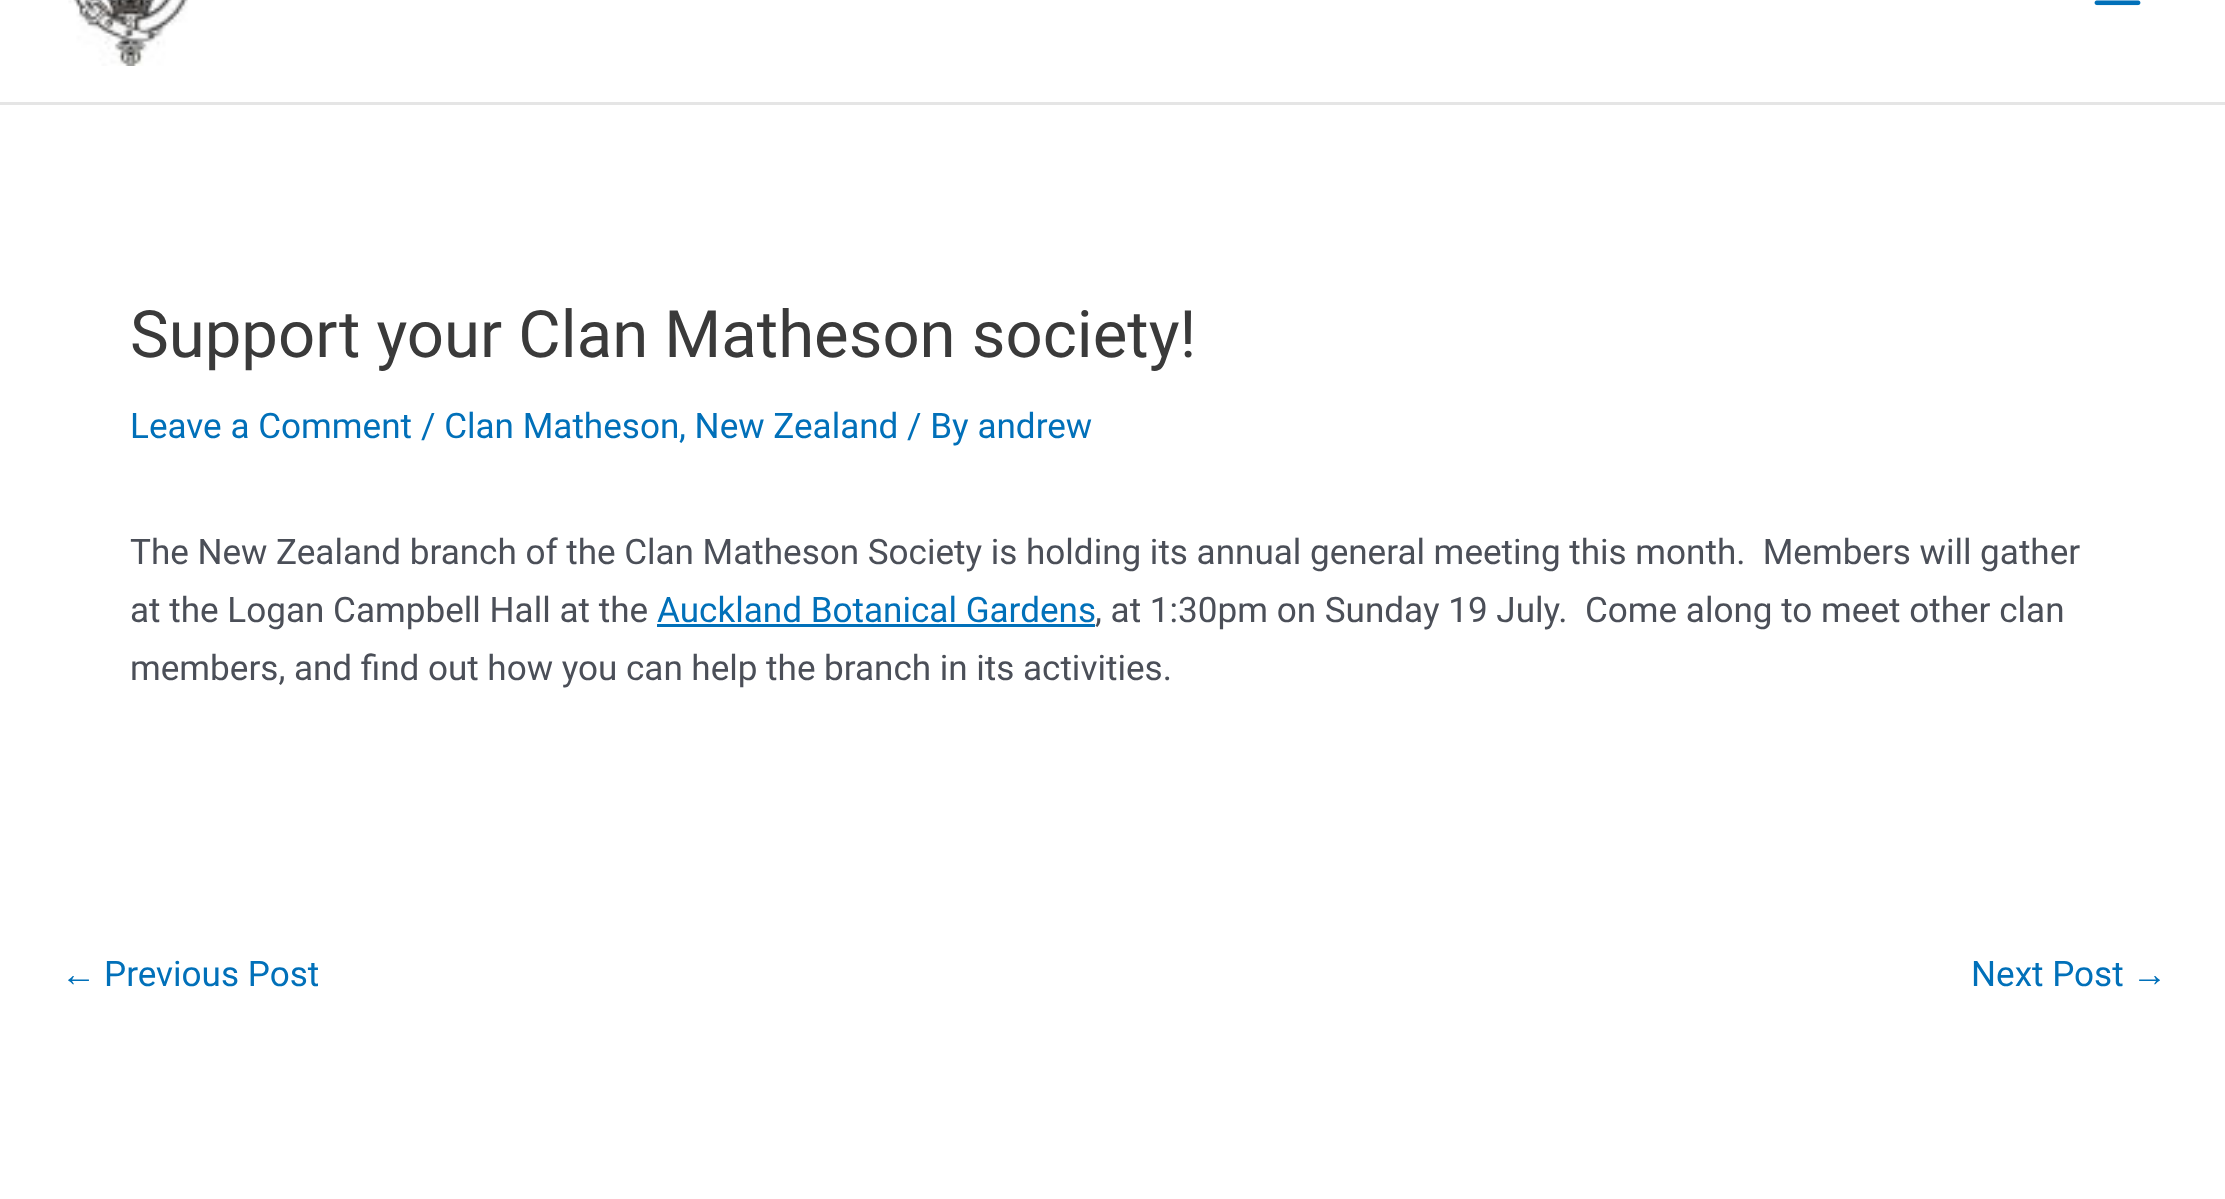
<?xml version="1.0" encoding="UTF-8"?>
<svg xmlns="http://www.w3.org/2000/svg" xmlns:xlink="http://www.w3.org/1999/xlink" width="2225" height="1199">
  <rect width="100%" height="100%" fill="#ffffff" />
  <rect y="102" width="2225" height="3" fill="#e5e5e5" />
  <image x="68" y="0" width="120" height="66" xlink:href="image1.png" />
  <image x="2094" y="0" width="47" height="6" xlink:href="image2.png" />
  <rect x="657" y="624" width="438" height="3" fill="#0170b9" />
  <text x="130" y="357" style="font-family: Roboto; font-size: 65.25px; fill: #3a3a3a">Support your Clan Matheson society!</text>
  <text x="130" y="438" style="font-family: Roboto; font-size: 35.1px; fill: #0170b9">Leave a Comment</text>
  <text x="421" y="438" style="font-family: Roboto; font-size: 35.1px; fill: #0170b9">/ Clan Matheson</text>
  <text x="679" y="438" style="font-family: Roboto; font-size: 35.1px; fill: #0170b9">, New Zealand / By andrew</text>
  <text x="130" y="564" word-spacing="-0.1" style="font-family: Roboto; font-size: 35.1px; fill: #4b4f58" xml:space="preserve">The New Zealand branch of the Clan Matheson Society is holding its annual general meeting this month.  Members will gather</text>
  <text x="130" y="622" style="font-family: Roboto; font-size: 35.1px; fill: #4b4f58">at the Logan Campbell Hall at the</text>
  <text x="657" y="622" style="font-family: Roboto; font-size: 35.1px; fill: #0170b9">Auckland Botanical Gardens</text>
  <text x="1095" y="622" style="font-family: Roboto; font-size: 35.1px; fill: #4b4f58" xml:space="preserve">, at 1:30pm on Sunday 19 July.  Come along to meet other clan</text>
  <text x="130" y="680" word-spacing="-0.1" style="font-family: Roboto; font-size: 35.1px; fill: #4b4f58">members, and find out how you can help the branch in its activities.</text>
  <text x="61" y="986" style="font-family: Liberation Sans; font-size: 35.1px; fill: #0170b9">←</text>
  <text x="104" y="986" style="font-family: Roboto; font-size: 35.1px; fill: #0170b9">Previous Post</text>
  <text x="1971" y="986" style="font-family: Roboto; font-size: 35.1px; fill: #0170b9">Next Post</text>
  <text x="2132" y="986" style="font-family: Liberation Sans; font-size: 35.1px; fill: #0170b9">→</text>
</svg>
